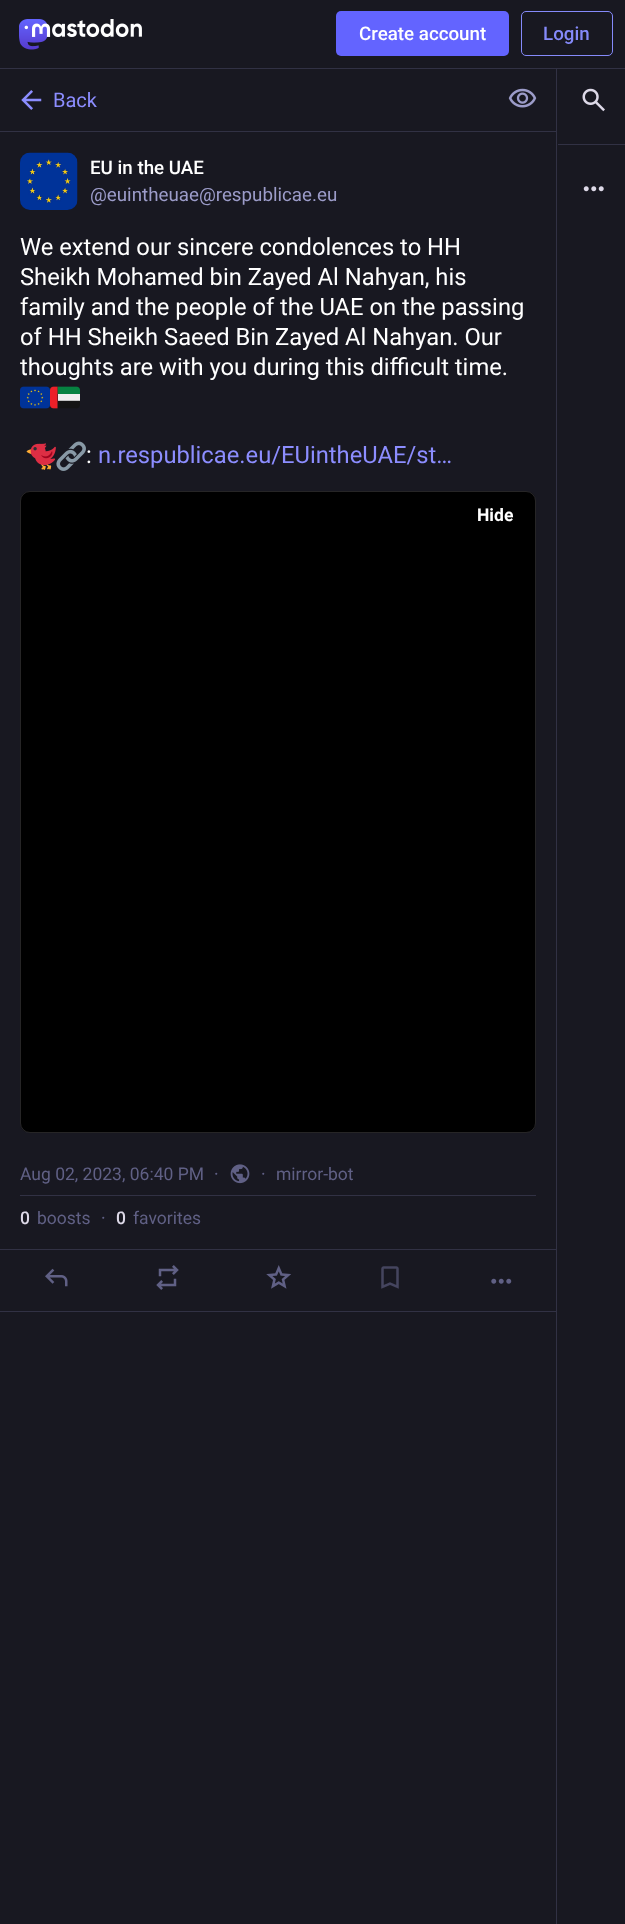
<?xml version="1.0" encoding="UTF-8"?>
<svg xmlns="http://www.w3.org/2000/svg" xmlns:xlink="http://www.w3.org/1999/xlink" width="625" height="1924">
  <rect width="100%" height="100%" fill="#181821" />
  <rect y="68" width="625" height="1" fill="#313144" />
  <image x="19" y="19" width="123" height="31" xlink:href="image1.png" />
  <rect x="336" y="11" width="173" height="45" rx="5" fill="#6364ff" />
  <rect x="521.5" y="11.5" width="91" height="44" rx="4.5" fill="none" stroke="#858afa" />
  <rect y="131" width="556" height="1" fill="#313144" />
  <image x="21" y="90" width="21" height="20" xlink:href="image2.png" />
  <image x="508" y="88" width="29" height="20" xlink:href="image3.png" />
  <image x="20" y="152" width="58" height="58" xlink:href="image4.png" />
  <image x="20" y="386" width="30" height="23" xlink:href="image5.png" />
  <image x="50" y="386" width="30" height="23" xlink:href="image6.png" />
  <image x="26" y="443" width="30" height="27" xlink:href="image7.png" />
  <image x="56" y="441" width="30" height="30" xlink:href="image8.png" />
  <rect x="20" y="491" width="516" height="642" rx="10" fill="#000000" />
  <rect x="20.5" y="491.5" width="515" height="641" rx="9.5" fill="none" stroke="#fcf8ff" stroke-opacity="0.15" />
  <rect x="20" y="1195" width="516" height="1" fill="#313144" />
  <image x="230" y="1164" width="20" height="20" xlink:href="image9.png" />
  <rect y="1249" width="556" height="1" fill="#313144" />
  <rect y="1311" width="556" height="1" fill="#313144" />
  <image x="45" y="1268" width="23" height="19" xlink:href="image10.png" />
  <image x="156" y="1265" width="23" height="25" xlink:href="image11.png" />
  <image x="266" y="1265" width="25" height="24" xlink:href="image12.png" />
  <image x="381" y="1266" width="18" height="23" xlink:href="image13.png" />
  <image x="491" y="1278" width="21" height="6" xlink:href="image14.png" />
  <rect x="556" y="69" width="1" height="1855" fill="#313144" />
  <image x="582" y="88" width="23" height="24" xlink:href="image15.png" />
  <rect x="558" y="144" width="67" height="1" fill="#313144" />
  <image x="583" y="186" width="21" height="6" xlink:href="image16.png" />
  <text x="359" y="40" style="font-family: Roboto; font-size: 18.75px; font-weight: 500; fill: #ffffff">Create account</text>
  <text x="543" y="40" style="font-family: Roboto; font-size: 18.75px; font-weight: 500; fill: #858afa">Login</text>
  <text x="53" y="107" style="font-family: Roboto; font-size: 20px; fill: #8c8dff">Back</text>
  <text x="90" y="174" style="font-family: Roboto; font-size: 18.75px; font-weight: 500; fill: #ffffff">EU in the UAE</text>
  <text x="90" y="201" style="font-family: Roboto; font-size: 18.75px; fill: #9c9cc9">@euintheuae@respublicae.eu</text>
  <text x="20" y="255" style="font-family: Roboto; font-size: 23.75px; fill: #ffffff">We extend our sincere condolences to HH</text>
  <text x="20" y="285" style="font-family: Roboto; font-size: 23.75px; fill: #ffffff">Sheikh Mohamed bin Zayed Al Nahyan, his</text>
  <text x="20" y="315" style="font-family: Roboto; font-size: 23.75px; fill: #ffffff">family and the people of the UAE on the passing</text>
  <text x="20" y="345" style="font-family: Roboto; font-size: 23.75px; fill: #ffffff">of HH Sheikh Saeed Bin Zayed Al Nahyan. Our</text>
  <text x="20" y="375" style="font-family: Roboto; font-size: 23.75px; fill: #ffffff">thoughts are with you during this difficult time.</text>
  <text x="86" y="463" style="font-family: Roboto; font-size: 23.75px; fill: #ffffff">:</text>
  <text x="98" y="463" style="font-family: Roboto; font-size: 23.75px; fill: #8c8dff">n.respublicae.eu/EUintheUAE/st…</text>
  <text x="477" y="521" style="font-family: Roboto; font-size: 17.5px; font-weight: bold; fill: #ffffff">Hide</text>
  <text x="20" y="1180" style="font-family: Roboto; font-size: 17.5px; fill: #606085">Aug 02, 2023, 06:40 PM</text>
  <text x="214" y="1180" style="font-family: Roboto; font-size: 17.5px; fill: #606085">·</text>
  <text x="261" y="1180" style="font-family: Roboto; font-size: 17.5px; fill: #606085">·</text>
  <text x="276" y="1180" style="font-family: Roboto; font-size: 17.5px; fill: #606085">mirror-bot</text>
  <text x="20" y="1224" style="font-family: Roboto; font-size: 17.5px; font-weight: 500; fill: #ddd9e8">0</text>
  <text x="37" y="1224" style="font-family: Roboto; font-size: 17.5px; fill: #606085">boosts</text>
  <text x="101" y="1224" style="font-family: Roboto; font-size: 17.5px; fill: #606085">·</text>
  <text x="116" y="1224" style="font-family: Roboto; font-size: 17.5px; font-weight: 500; fill: #ddd9e8">0</text>
  <text x="133" y="1224" style="font-family: Roboto; font-size: 17.5px; fill: #606085">favorites</text>
</svg>
